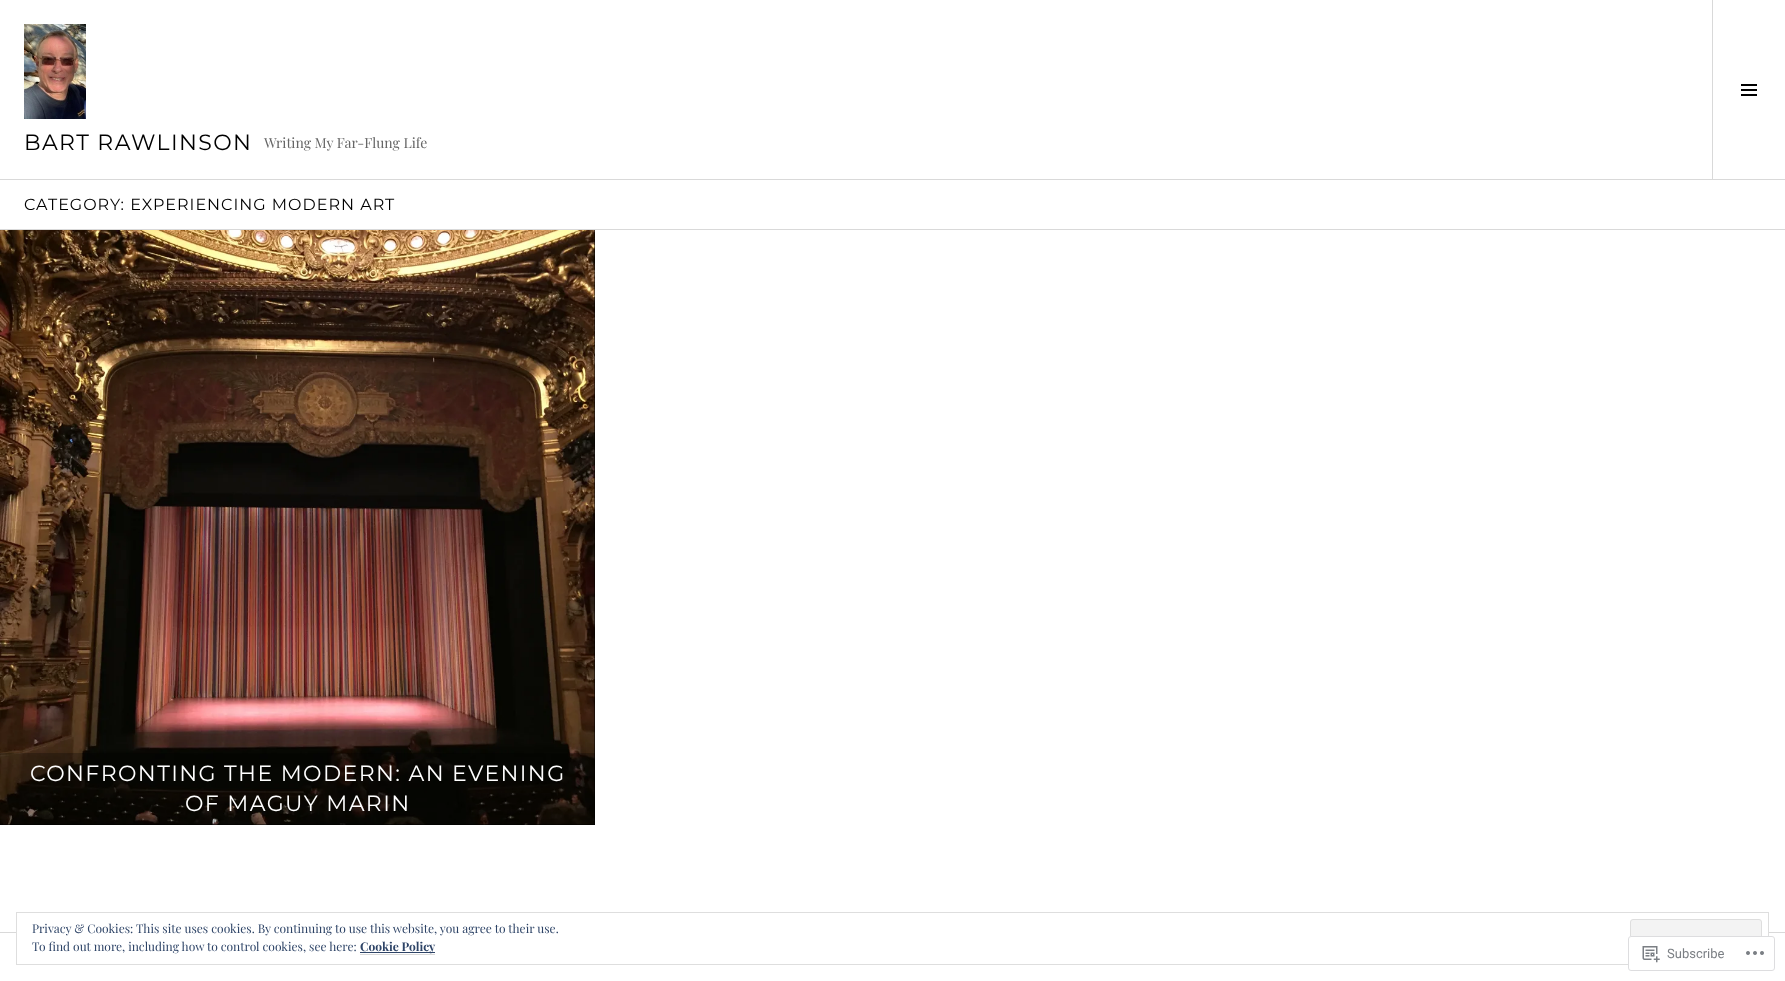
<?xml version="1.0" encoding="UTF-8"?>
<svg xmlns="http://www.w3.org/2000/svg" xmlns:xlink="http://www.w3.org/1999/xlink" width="1785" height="981">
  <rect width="100%" height="100%" fill="#ffffff" />
  <rect y="179" width="1785" height="1" fill="#d9d9d9" />
  <image x="24" y="24" width="62" height="95" xlink:href="image1.png" />
  <rect x="1712" width="1" height="179" fill="#d9d9d9" />
  <image x="1741" y="84" width="16" height="12" xlink:href="image2.png" />
  <rect y="229" width="1785" height="1" fill="#d9d9d9" />
  <rect y="230" width="595" height="595" fill="#000000" />
  <image x="0" y="230" width="595" height="595" xlink:href="image3.png" />
  <rect y="753" width="595" height="72" fill="#000000" fill-opacity="0.25" />
  <rect y="932" width="1785" height="1" fill="#d9d9d9" />
  <rect x="17" y="932" width="1751" height="1" fill="#ffffff" />
  <rect x="16.5" y="912.5" width="1752" height="52" fill="none" stroke="#dedede" />
  <rect x="1630.5" y="919.5" width="131" height="38" rx="2.5" fill="#f3f3f3" stroke="#dedede" />
  <rect x="360" y="954" width="75" height="1" fill="#d9d9d9" />
  <rect x="360" y="952" width="75" height="1" fill="#2e4467" />
  <rect x="1628" y="936" width="147" height="35" rx="3" fill="#ffffff" fill-opacity="0.98" />
  <rect x="1628.5" y="936.5" width="146" height="34" rx="2.5" fill="none" stroke="#dcdcde" stroke-opacity="0.98" />
  <image x="1642" y="946" width="18" height="17" xlink:href="image4.png" />
  <image x="1746" y="951" width="18" height="4" xlink:href="image5.png" />
  <text x="24" y="150" style="font-family: Montserrat; font-size: 22px; letter-spacing: 1.4px; fill: #000000">BART RAWLINSON</text>
  <text x="264" y="148" style="font-family: Playfair Display; font-size: 14px; fill: #666666">Writing My Far-Flung Life</text>
  <text x="24" y="210" style="font-family: Montserrat; font-size: 16px; letter-spacing: 1px; fill: #000000">CATEGORY: EXPERIENCING MODERN ART</text>
  <text x="30" y="781" style="font-family: Montserrat; font-size: 22px; letter-spacing: 1.4px; fill: #ffffff">CONFRONTING THE MODERN: AN EVENING</text>
  <text x="185" y="811" style="font-family: Montserrat; font-size: 22px; letter-spacing: 1.4px; fill: #ffffff">OF MAGUY MARIN</text>
  <text x="32" y="933" style="font-family: Playfair Display; font-size: 12px; fill: #2e4467">Privacy &amp; Cookies: This site uses cookies. By continuing to use this website, you agree to their use.</text>
  <text x="32" y="951" style="font-family: Playfair Display; font-size: 12px; fill: #2e4467">To find out more, including how to control cookies, see here:</text>
  <text x="360" y="951" style="font-family: Playfair Display; font-size: 12px; font-weight: bold; fill: #2e4467">Cookie Policy</text>
  <text x="1667" y="958" style="font-family: Roboto; font-size: 13px; fill: #7b7f84">Subscribe</text>
</svg>
